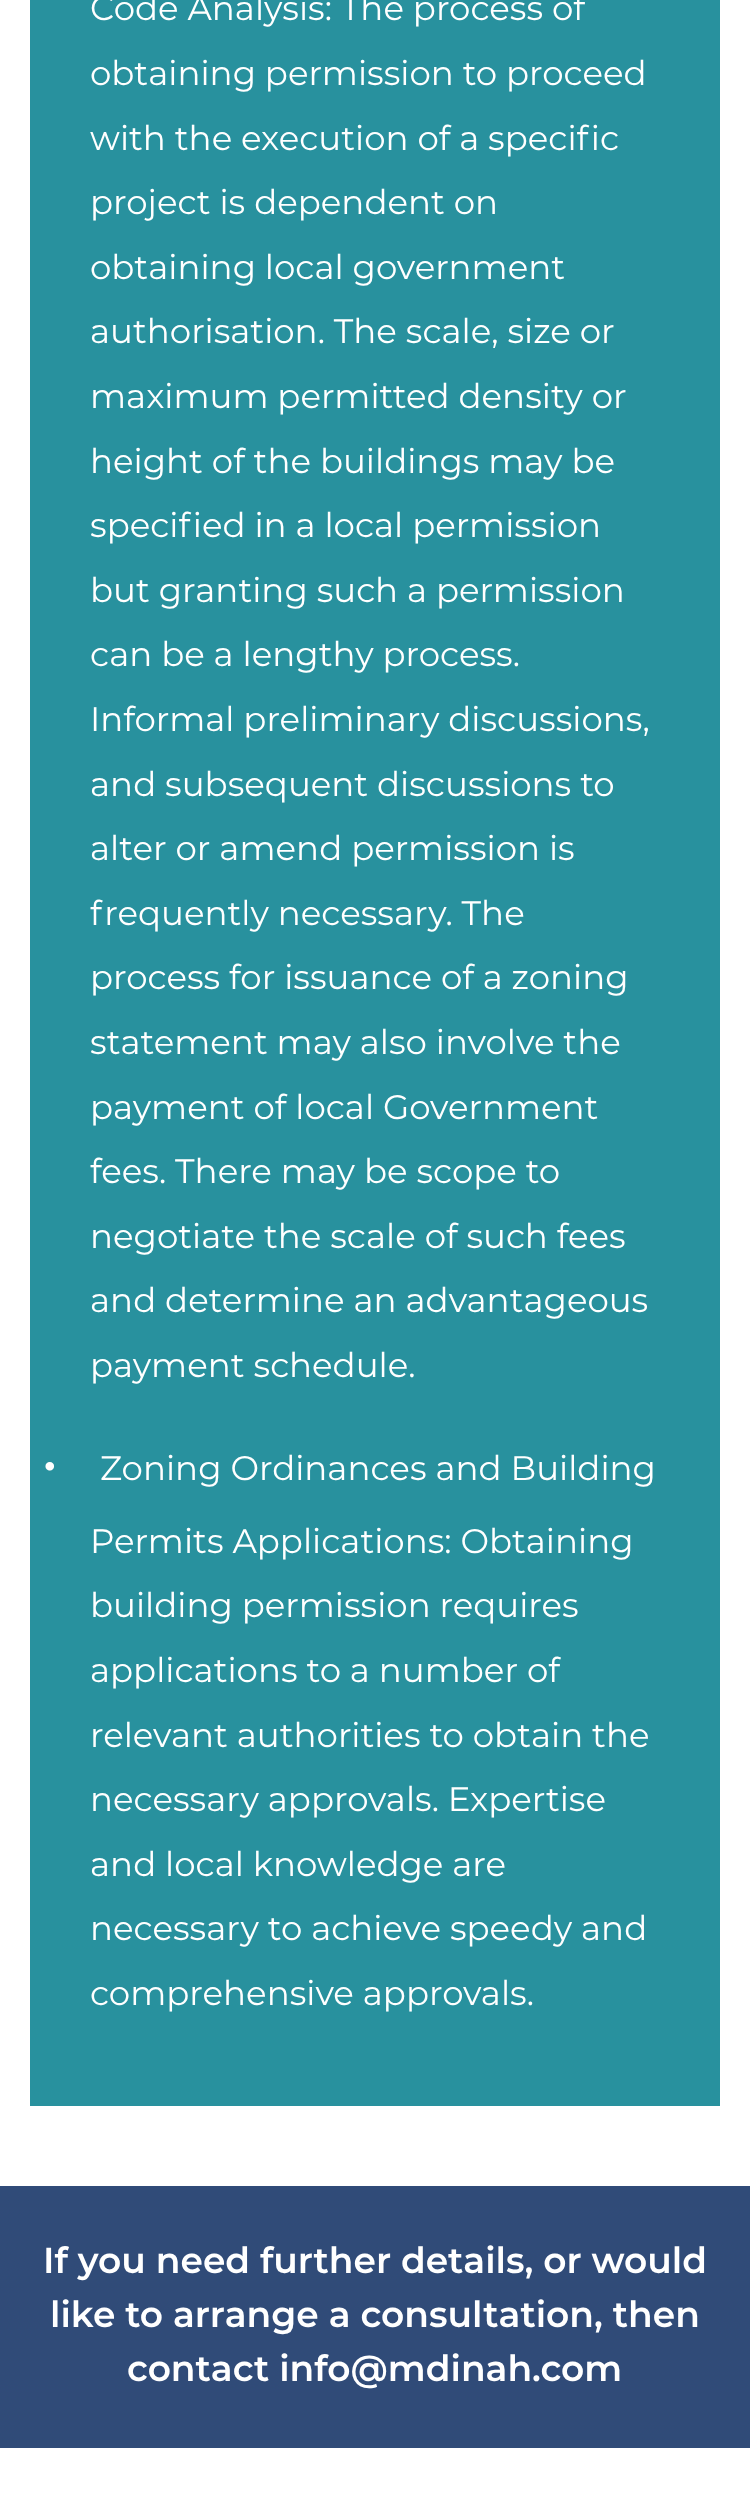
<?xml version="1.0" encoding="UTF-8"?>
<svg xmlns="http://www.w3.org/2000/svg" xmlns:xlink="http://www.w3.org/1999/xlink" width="750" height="2501">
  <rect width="100%" height="100%" fill="#ffffff" />
  <rect x="30" width="690" height="2106" fill="#28919e" />
  <rect y="2186" width="750" height="262" fill="#304b78" />
  <text x="90" y="20" style="font-family: Montserrat; font-size: 34px; fill: #ffffff">Code Analysis: The process of</text>
  <text x="90" y="85" style="font-family: Montserrat; font-size: 34px; fill: #ffffff">obtaining permission to proceed</text>
  <text x="90" y="150" style="font-family: Montserrat; font-size: 34px; fill: #ffffff">with the execution of a specific</text>
  <text x="90" y="214" style="font-family: Montserrat; font-size: 34px; fill: #ffffff">project is dependent on</text>
  <text x="90" y="279" style="font-family: Montserrat; font-size: 34px; fill: #ffffff">obtaining local government</text>
  <text x="90" y="343" style="font-family: Montserrat; font-size: 34px; fill: #ffffff">authorisation. The scale, size or</text>
  <text x="90" y="408" style="font-family: Montserrat; font-size: 34px; fill: #ffffff">maximum permitted density or</text>
  <text x="90" y="473" style="font-family: Montserrat; font-size: 34px; fill: #ffffff">height of the buildings may be</text>
  <text x="90" y="537" style="font-family: Montserrat; font-size: 34px; fill: #ffffff">specified in a local permission</text>
  <text x="90" y="602" style="font-family: Montserrat; font-size: 34px; fill: #ffffff">but granting such a permission</text>
  <text x="90" y="666" style="font-family: Montserrat; font-size: 34px; fill: #ffffff">can be a lengthy process.</text>
  <text x="90" y="731" style="font-family: Montserrat; font-size: 34px; fill: #ffffff">Informal preliminary discussions,</text>
  <text x="90" y="796" style="font-family: Montserrat; font-size: 34px; fill: #ffffff">and subsequent discussions to</text>
  <text x="90" y="860" style="font-family: Montserrat; font-size: 34px; fill: #ffffff">alter or amend permission is</text>
  <text x="90" y="925" style="font-family: Montserrat; font-size: 34px; fill: #ffffff">frequently necessary. The</text>
  <text x="90" y="989" style="font-family: Montserrat; font-size: 34px; fill: #ffffff">process for issuance of a zoning</text>
  <text x="90" y="1054" style="font-family: Montserrat; font-size: 34px; fill: #ffffff">statement may also involve the</text>
  <text x="90" y="1119" style="font-family: Montserrat; font-size: 34px; fill: #ffffff">payment of local Government</text>
  <text x="90" y="1183" style="font-family: Montserrat; font-size: 34px; fill: #ffffff">fees. There may be scope to</text>
  <text x="90" y="1248" style="font-family: Montserrat; font-size: 34px; fill: #ffffff">negotiate the scale of such fees</text>
  <text x="90" y="1312" style="font-family: Montserrat; font-size: 34px; fill: #ffffff">and determine an advantageous</text>
  <text x="90" y="1377" style="font-family: Montserrat; font-size: 34px; fill: #ffffff">payment schedule.</text>
  <text x="42" y="1480" style="font-family: Montserrat; font-size: 48px; font-weight: bold; fill: #ffffff">•</text>
  <text x="100" y="1480" style="font-family: Montserrat; font-size: 34px; fill: #ffffff">Zoning Ordinances and Building</text>
  <text x="90" y="1553" style="font-family: Montserrat; font-size: 34px; fill: #ffffff">Permits Applications: Obtaining</text>
  <text x="90" y="1617" style="font-family: Montserrat; font-size: 34px; fill: #ffffff">building permission requires</text>
  <text x="90" y="1682" style="font-family: Montserrat; font-size: 34px; fill: #ffffff">applications to a number of</text>
  <text x="90" y="1747" style="font-family: Montserrat; font-size: 34px; fill: #ffffff">relevant authorities to obtain the</text>
  <text x="90" y="1811" style="font-family: Montserrat; font-size: 34px; fill: #ffffff">necessary approvals. Expertise</text>
  <text x="90" y="1876" style="font-family: Montserrat; font-size: 34px; fill: #ffffff">and local knowledge are</text>
  <text x="90" y="1940" style="font-family: Montserrat; font-size: 34px; fill: #ffffff">necessary to achieve speedy and</text>
  <text x="90" y="2005" style="font-family: Montserrat; font-size: 34px; fill: #ffffff">comprehensive approvals.</text>
  <text x="43" y="2273" style="font-family: Montserrat; font-size: 36px; font-weight: 600; fill: #ffffff">If you need further details, or would</text>
  <text x="50" y="2327" style="font-family: Montserrat; font-size: 36px; font-weight: 600; fill: #ffffff">like to arrange a consultation, then</text>
  <text x="127" y="2381" style="font-family: Montserrat; font-size: 36px; font-weight: 600; fill: #ffffff">contact info@mdinah.com</text>
</svg>
